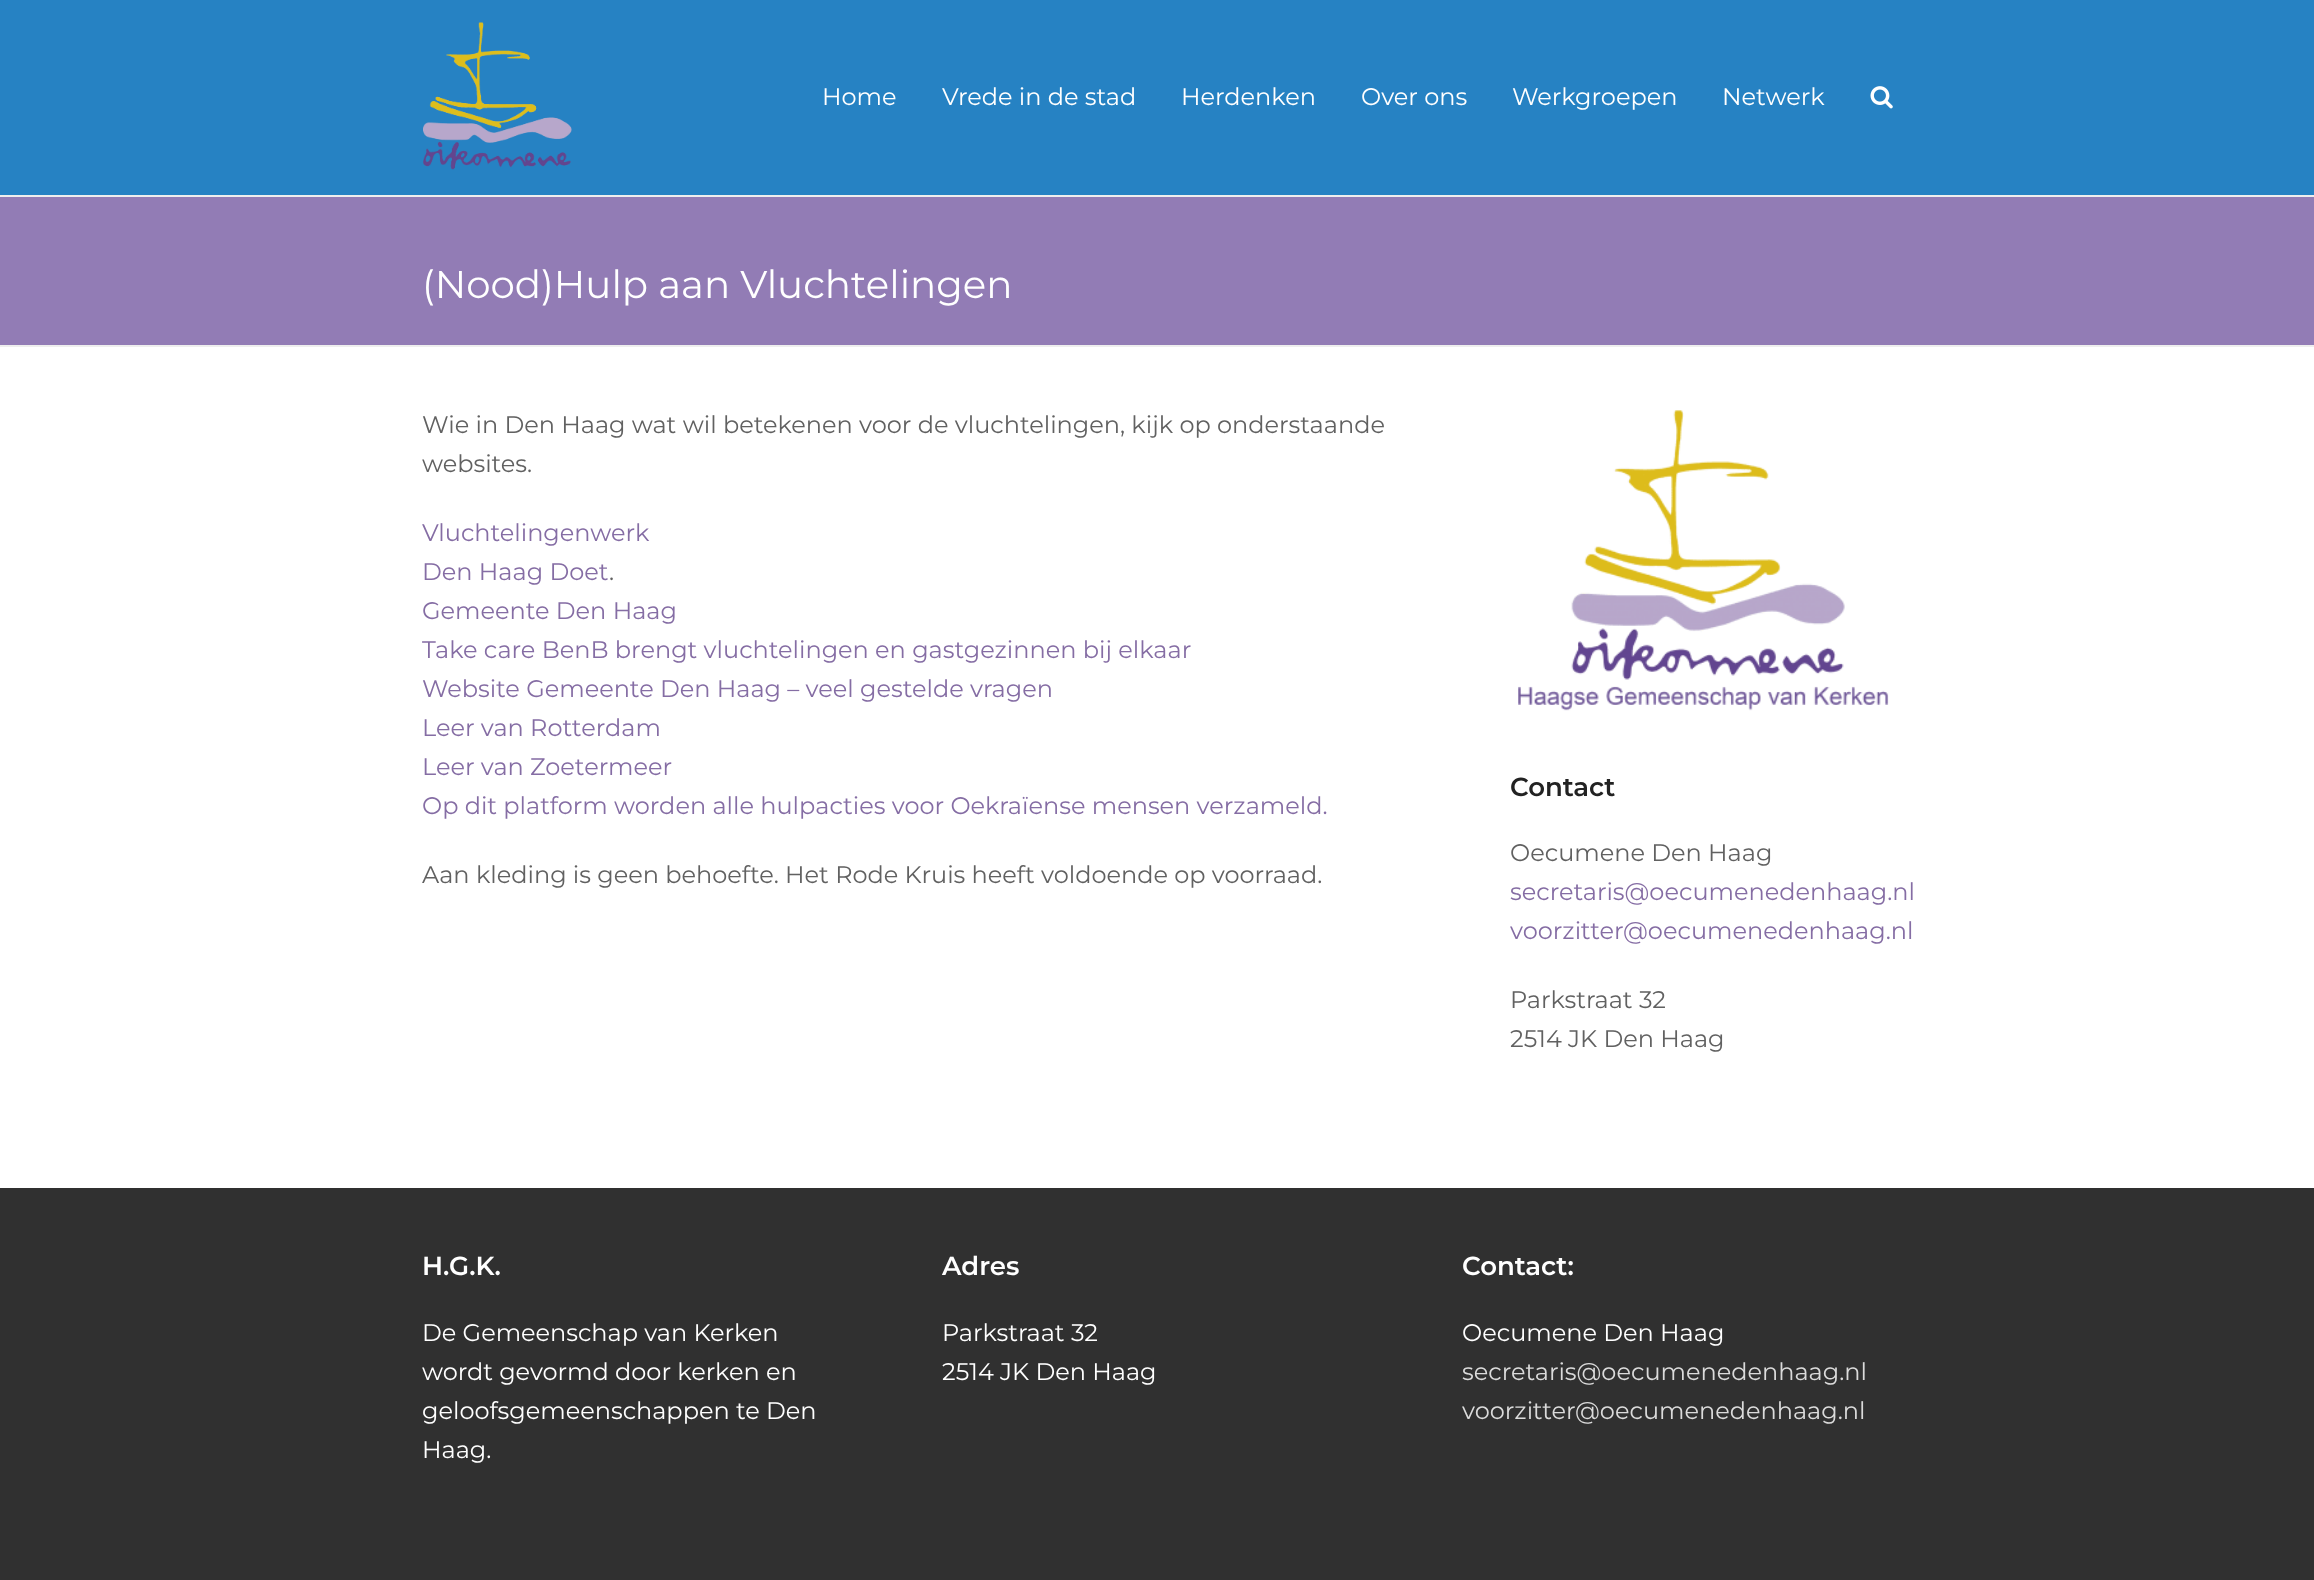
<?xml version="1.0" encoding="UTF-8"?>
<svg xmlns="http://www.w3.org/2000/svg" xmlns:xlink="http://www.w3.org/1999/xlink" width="2314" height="1580">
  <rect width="100%" height="100%" fill="#ffffff" />
  <rect width="2314" height="195" fill="#2682c3" />
  <image x="423" y="22" width="149" height="148" xlink:href="image1.png" />
  <image x="1870" y="86" width="23" height="23" xlink:href="image2.png" />
  <rect y="197" width="2314" height="148" fill="#927cb5" />
  <rect y="195" width="2314" height="2" fill="#eeeeee" />
  <rect y="345" width="2314" height="2" fill="#eeeeee" />
  <image x="1518" y="410" width="371" height="301" xlink:href="image3.png" />
  <rect y="1188" width="2314" height="392" fill="#303030" />
  <text x="822" y="105" style="font-family: Montserrat; font-size: 24px; fill: #ffffff">Home</text>
  <text x="942" y="105" style="font-family: Montserrat; font-size: 24px; fill: #ffffff">Vrede in de stad</text>
  <text x="1181" y="105" style="font-family: Montserrat; font-size: 24px; fill: #ffffff">Herdenken</text>
  <text x="1361" y="105" style="font-family: Montserrat; font-size: 24px; fill: #ffffff">Over ons</text>
  <text x="1512" y="105" style="font-family: Montserrat; font-size: 24px; fill: #ffffff">Werkgroepen</text>
  <text x="1722" y="105" style="font-family: Montserrat; font-size: 24px; fill: #ffffff">Netwerk</text>
  <text x="422" y="298" style="font-family: Montserrat; font-size: 38.75px; fill: #ffffff">(Nood)Hulp aan Vluchtelingen</text>
  <text x="422" y="433" style="font-family: Montserrat; font-size: 24px; fill: #616161">Wie in Den Haag wat wil betekenen voor de vluchtelingen, kijk op onderstaande</text>
  <text x="422" y="472" style="font-family: Montserrat; font-size: 24px; fill: #616161">websites.</text>
  <text x="422" y="541" style="font-family: Montserrat; font-size: 24px; fill: #856da4">Vluchtelingenwerk</text>
  <text x="422" y="580" style="font-family: Montserrat; font-size: 24px; fill: #856da4">Den Haag Doet</text>
  <text x="609" y="580" style="font-family: Montserrat; font-size: 24px; fill: #616161">.</text>
  <text x="422" y="619" style="font-family: Montserrat; font-size: 24px; fill: #856da4">Gemeente Den Haag</text>
  <text x="422" y="658" style="font-family: Montserrat; font-size: 24px; fill: #856da4">Take care BenB brengt vluchtelingen en gastgezinnen bij elkaar</text>
  <text x="422" y="697" style="font-family: Montserrat; font-size: 24px; fill: #856da4">Website Gemeente Den Haag – veel gestelde vragen</text>
  <text x="422" y="736" style="font-family: Montserrat; font-size: 24px; fill: #856da4">Leer van Rotterdam</text>
  <text x="422" y="775" style="font-family: Montserrat; font-size: 24px; fill: #856da4">Leer van Zoetermeer</text>
  <text x="422" y="814" style="font-family: Montserrat; font-size: 24px; fill: #856da4">Op dit platform worden alle hulpacties voor Oekraïense mensen verzameld.</text>
  <text x="422" y="883" style="font-family: Montserrat; font-size: 24px; fill: #616161">Aan kleding is geen behoefte. Het Rode Kruis heeft voldoende op voorraad.</text>
  <text x="1510" y="796" style="font-family: Montserrat; font-size: 26px; font-weight: 600; fill: #222222">Contact</text>
  <text x="1510" y="861" style="font-family: Montserrat; font-size: 24px; fill: #616161">Oecumene Den Haag</text>
  <text x="1510" y="900" style="font-family: Montserrat; font-size: 24px; fill: #856da4">secretaris@oecumenedenhaag.nl</text>
  <text x="1510" y="939" style="font-family: Montserrat; font-size: 24px; fill: #856da4">voorzitter@oecumenedenhaag.nl</text>
  <text x="1510" y="1008" style="font-family: Montserrat; font-size: 24px; fill: #616161">Parkstraat 32</text>
  <text x="1510" y="1047" style="font-family: Montserrat; font-size: 24px; fill: #616161">2514 JK Den Haag</text>
  <text x="422" y="1275" style="font-family: Montserrat; font-size: 26px; font-weight: 600; fill: #ffffff">H.G.K.</text>
  <text x="422" y="1341" style="font-family: Montserrat; font-size: 24px; fill: #ffffff">De Gemeenschap van Kerken</text>
  <text x="422" y="1380" style="font-family: Montserrat; font-size: 24px; fill: #ffffff">wordt gevormd door kerken en</text>
  <text x="422" y="1419" style="font-family: Montserrat; font-size: 24px; fill: #ffffff">geloofsgemeenschappen te Den</text>
  <text x="422" y="1458" style="font-family: Montserrat; font-size: 24px; fill: #ffffff">Haag.</text>
  <text x="942" y="1275" style="font-family: Montserrat; font-size: 26px; font-weight: 600; fill: #ffffff">Adres</text>
  <text x="942" y="1341" style="font-family: Montserrat; font-size: 24px; fill: #ffffff">Parkstraat 32</text>
  <text x="942" y="1380" style="font-family: Montserrat; font-size: 24px; fill: #ffffff">2514 JK Den Haag</text>
  <text x="1462" y="1275" style="font-family: Montserrat; font-size: 26px; font-weight: 600; fill: #ffffff">Contact:</text>
  <text x="1462" y="1341" style="font-family: Montserrat; font-size: 24px; fill: #ffffff">Oecumene Den Haag</text>
  <text x="1462" y="1380" style="font-family: Montserrat; font-size: 24px; fill: #dbdbdb">secretaris@oecumenedenhaag.nl</text>
  <text x="1462" y="1419" style="font-family: Montserrat; font-size: 24px; fill: #dbdbdb">voorzitter@oecumenedenhaag.nl</text>
</svg>
